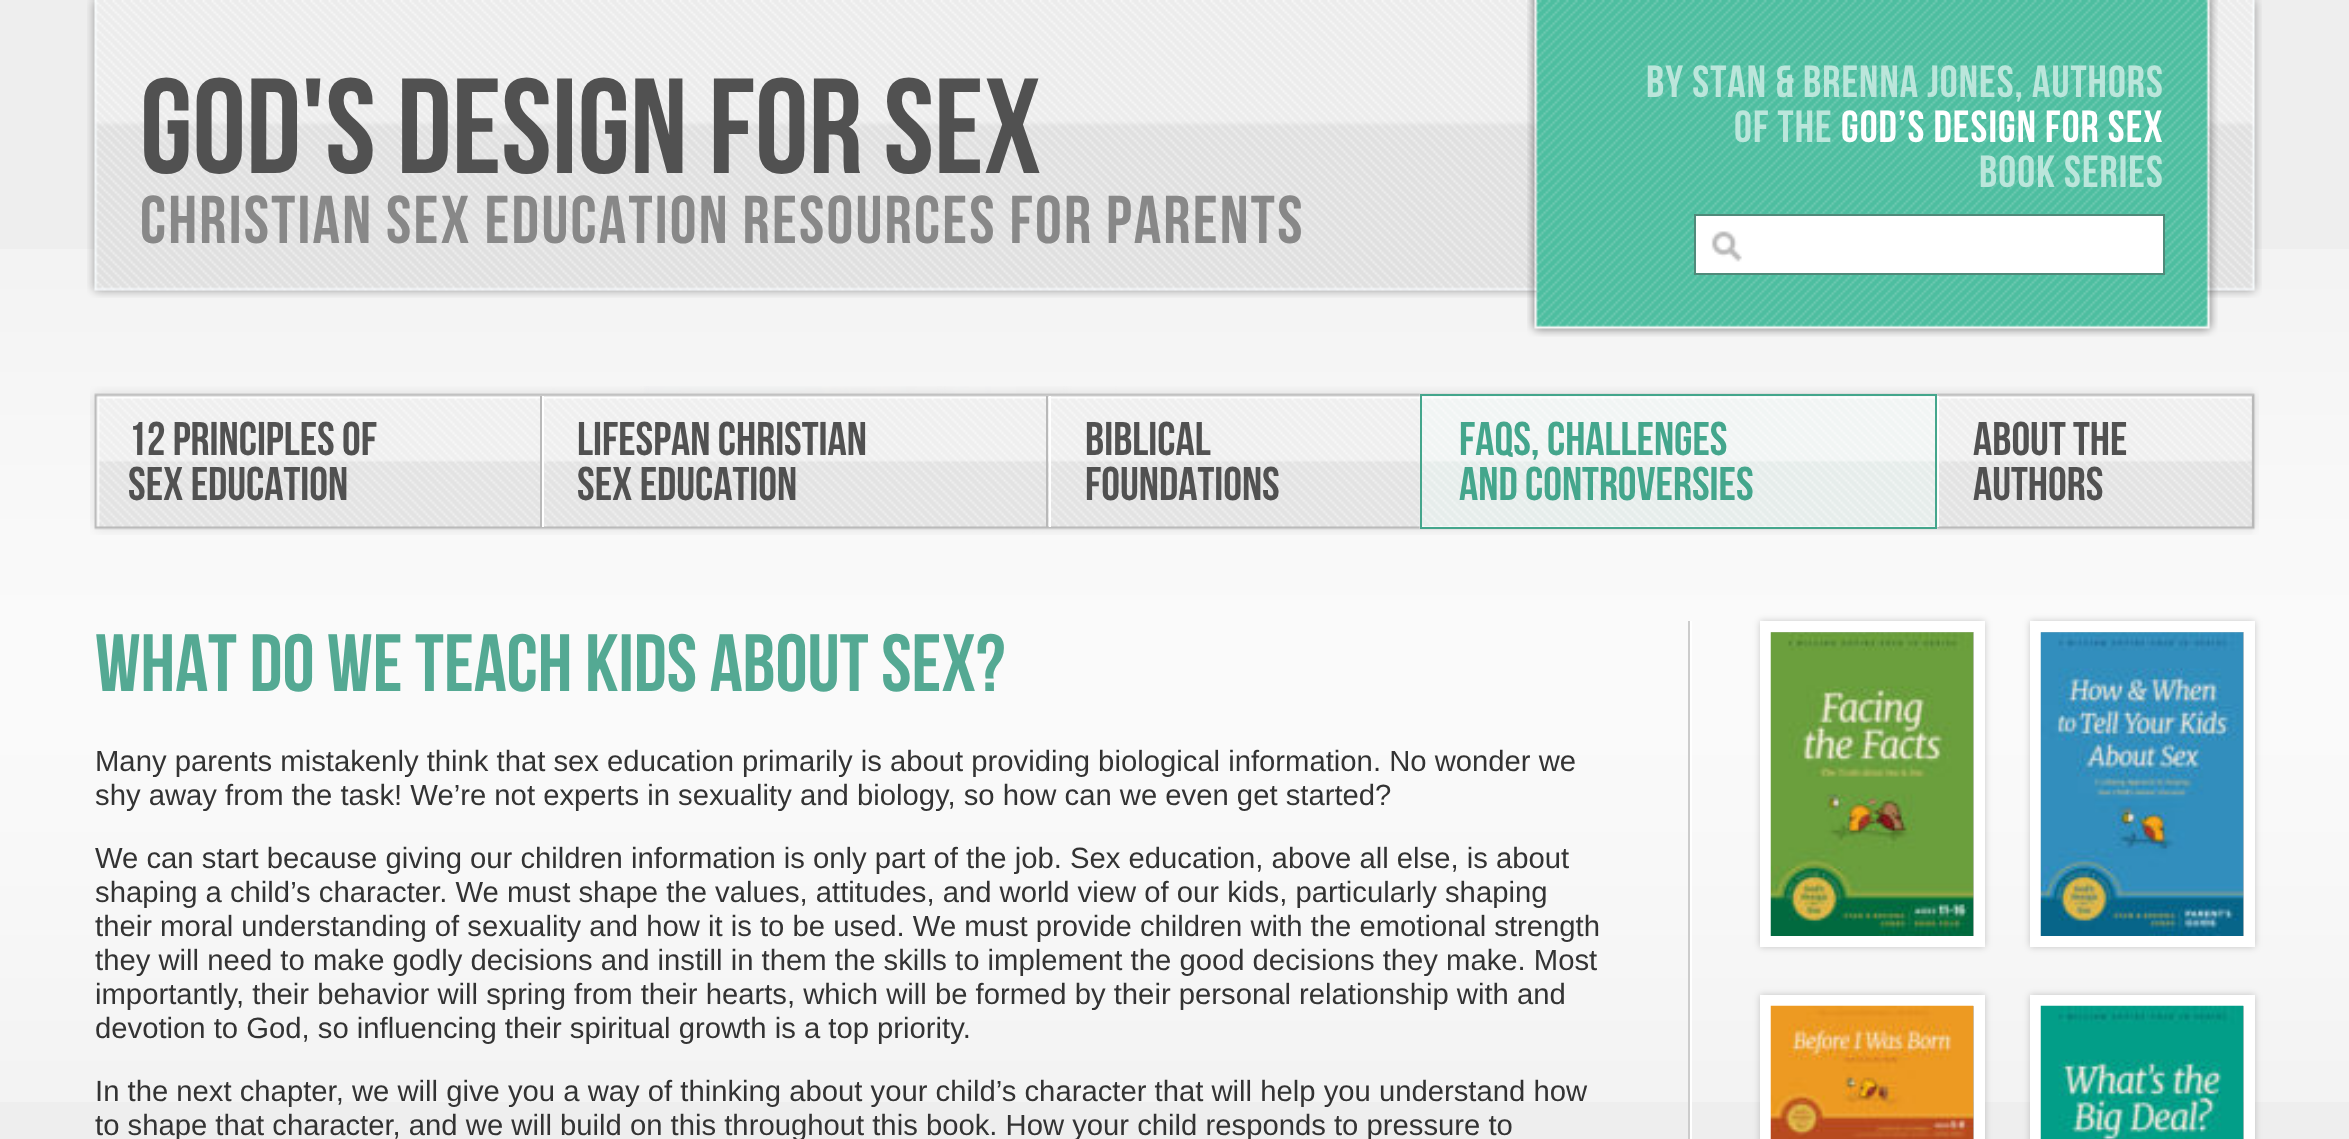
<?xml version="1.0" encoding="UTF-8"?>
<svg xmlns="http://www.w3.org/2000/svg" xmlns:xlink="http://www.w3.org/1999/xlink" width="2349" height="1139">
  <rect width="100%" height="100%" fill="#eeeeee" />
  <image x="0" y="249" width="2349" height="853" xlink:href="image1.png" />
  <image x="87" y="0" width="2175" height="298" xlink:href="image2.png" />
  <image x="1527" y="0" width="691" height="337" xlink:href="image3.png" />
  <rect x="1696" y="216" width="467" height="57" fill="#ffffff" />
  <image x="1711" y="231" width="31" height="31" xlink:href="image4.png" />
  <rect x="1695" y="215" width="469" height="59" fill="none" stroke="#508a7a" stroke-width="2" />
  <image x="90" y="386" width="2169" height="149" xlink:href="image5.png" />
  <rect x="540" y="396" width="2" height="131" fill="#b9b9b9" />
  <rect x="1046" y="396" width="2" height="131" fill="#b9b9b9" />
  <rect x="542" y="396" width="2" height="131" fill="#ffffff" />
  <rect x="1049" y="396" width="2" height="131" fill="#ffffff" />
  <rect x="1937" y="396" width="2" height="131" fill="#ffffff" />
  <image x="1419" y="393" width="519" height="136" xlink:href="image6.png" />
  <rect x="1421" y="395" width="515" height="133" fill="none" stroke="#44a68c" stroke-width="2" />
  <rect x="2252" y="396" width="1" height="131" fill="#b9b9b9" />
  <rect x="1688" y="621" width="2" height="518" fill="#cccccc" />
  <rect x="1690" y="621" width="2" height="518" fill="#ffffff" />
  <rect x="1760" y="621" width="225" height="326" fill="#000000" fill-opacity="0.2" filter="blur(3.5px)" />
  <rect x="1765.5" y="626.5" width="214" height="315" fill="none" stroke="#ffffff" stroke-width="11" />
  <image x="1770" y="632" width="204" height="304" xlink:href="image7.png" />
  <rect x="2030" y="621" width="225" height="326" fill="#000000" fill-opacity="0.2" filter="blur(3.5px)" />
  <rect x="2035.5" y="626.5" width="214" height="315" fill="none" stroke="#ffffff" stroke-width="11" />
  <image x="2040" y="632" width="204" height="304" xlink:href="image8.png" />
  <rect x="1760" y="995" width="225" height="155" fill="#000000" fill-opacity="0.2" filter="blur(3.5px)" />
  <rect x="1765.5" y="1000.5" width="214" height="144" fill="none" stroke="#ffffff" stroke-width="11" />
  <image x="1770" y="1005" width="204" height="134" xlink:href="image9.png" />
  <rect x="2030" y="995" width="225" height="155" fill="#000000" fill-opacity="0.2" filter="blur(3.5px)" />
  <rect x="2035.5" y="1000.5" width="214" height="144" fill="none" stroke="#ffffff" stroke-width="11" />
  <image x="2040" y="1005" width="204" height="134" xlink:href="image10.png" />
  <text x="140" y="173" style="font-family: Bebas Neue; font-size: 135px; fill: #515151">God's Design For Sex</text>
  <text x="140" y="243" style="font-family: Bebas Neue; font-size: 67.5px; letter-spacing: 2.25px; fill: #888888">CHRISTIAN SEX EDUCATION RESOURCES FOR PARENTS</text>
  <text x="1646" y="97" style="font-family: Bebas Neue; font-size: 45px; letter-spacing: 1.1px; fill: #bbe6db">By Stan &amp; Brenna Jones, Authors</text>
  <text x="1734" y="142" style="font-family: Bebas Neue; font-size: 45px; letter-spacing: 1.1px; fill: #bbe6db">of The</text>
  <text x="1841" y="142" style="font-family: Bebas Neue; font-size: 45px; letter-spacing: 1.1px; fill: #ffffff">God’s Design for Sex</text>
  <text x="1979" y="187" style="font-family: Bebas Neue; font-size: 45px; letter-spacing: 1.1px; fill: #bbe6db">Book Series</text>
  <text x="128" y="455" style="font-family: Bebas Neue; font-size: 47.25px; fill: #515151">12 Principles of</text>
  <text x="128" y="500" style="font-family: Bebas Neue; font-size: 47.25px; fill: #515151">Sex Education</text>
  <text x="577" y="455" style="font-family: Bebas Neue; font-size: 47.25px; fill: #515151">Lifespan Christian</text>
  <text x="577" y="500" style="font-family: Bebas Neue; font-size: 47.25px; fill: #515151">Sex Education</text>
  <text x="1085" y="455" style="font-family: Bebas Neue; font-size: 47.25px; fill: #515151">Biblical</text>
  <text x="1085" y="500" style="font-family: Bebas Neue; font-size: 47.25px; fill: #515151">Foundations</text>
  <text x="1459" y="455" style="font-family: Bebas Neue; font-size: 47.25px; fill: #44a68c">FAQs, Challenges</text>
  <text x="1459" y="500" style="font-family: Bebas Neue; font-size: 47.25px; fill: #44a68c">and Controversies</text>
  <text x="1973" y="455" style="font-family: Bebas Neue; font-size: 47.25px; fill: #515151">About the</text>
  <text x="1973" y="500" style="font-family: Bebas Neue; font-size: 47.25px; fill: #515151">Authors</text>
  <text x="95" y="691" style="font-family: Bebas Neue; font-size: 81px; fill: #54a993">What do we teach kids about sex?</text>
  <text x="95" y="771" style="font-family: Liberation Sans; font-size: 29.25px; fill: #333333">Many parents mistakenly think that sex education primarily is about providing biological information. No wonder we</text>
  <text x="95" y="805" style="font-family: Liberation Sans; font-size: 29.25px; fill: #333333">shy away from the task! We’re not experts in sexuality and biology, so how can we even get started?</text>
  <text x="95" y="868" style="font-family: Liberation Sans; font-size: 29.25px; fill: #333333">We can start because giving our children information is only part of the job. Sex education, above all else, is about</text>
  <text x="95" y="902" style="font-family: Liberation Sans; font-size: 29.25px; fill: #333333">shaping a child’s character. We must shape the values, attitudes, and world view of our kids, particularly shaping</text>
  <text x="95" y="936" style="font-family: Liberation Sans; font-size: 29.25px; fill: #333333">their moral understanding of sexuality and how it is to be used. We must provide children with the emotional strength</text>
  <text x="95" y="970" style="font-family: Liberation Sans; font-size: 29.25px; fill: #333333">they will need to make godly decisions and instill in them the skills to implement the good decisions they make. Most</text>
  <text x="95" y="1004" style="font-family: Liberation Sans; font-size: 29.25px; fill: #333333">importantly, their behavior will spring from their hearts, which will be formed by their personal relationship with and</text>
  <text x="95" y="1038" style="font-family: Liberation Sans; font-size: 29.25px; fill: #333333">devotion to God, so influencing their spiritual growth is a top priority.</text>
  <text x="95" y="1101" style="font-family: Liberation Sans; font-size: 29.25px; fill: #333333">In the next chapter, we will give you a way of thinking about your child’s character that will help you understand how</text>
  <text x="95" y="1135" style="font-family: Liberation Sans; font-size: 29.25px; fill: #333333">to shape that character, and we will build on this throughout this book. How your child responds to pressure to</text>
</svg>
